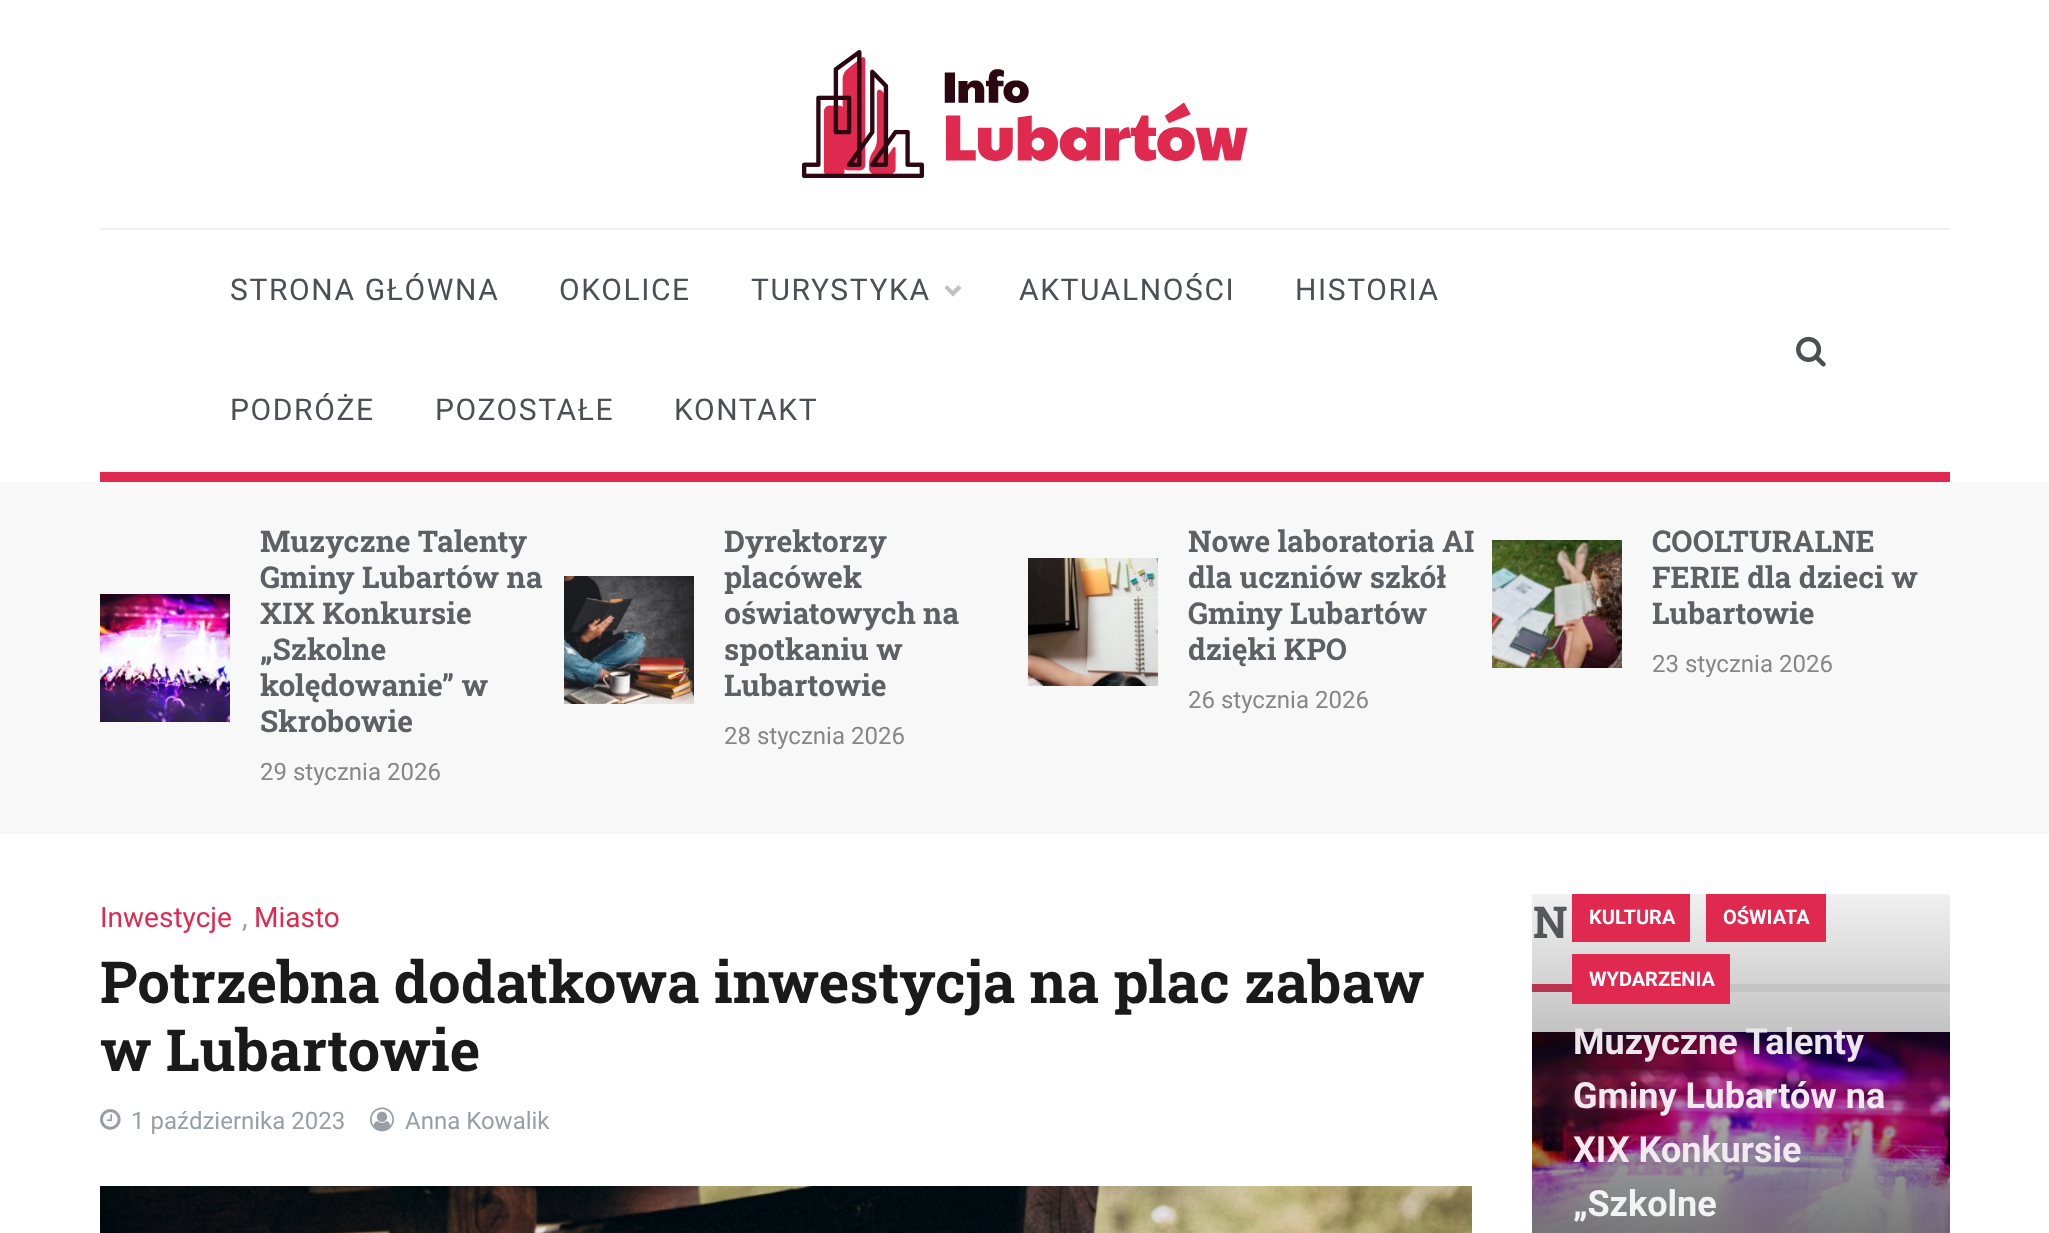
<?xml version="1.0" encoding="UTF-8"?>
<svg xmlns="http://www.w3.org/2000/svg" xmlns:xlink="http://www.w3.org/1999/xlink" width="2049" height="1233">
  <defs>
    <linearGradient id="g1" gradientUnits="userSpaceOnUse" x1="1741" y1="850" x2="1741" y2="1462"><stop offset="0" stop-color="#000000" stop-opacity="0" /><stop offset="0.5" stop-color="#000000" stop-opacity="0.4" /><stop offset="1" stop-color="#000000" stop-opacity="0.9" /></linearGradient>
  </defs>
  <rect width="100%" height="100%" fill="#ffffff" />
  <rect x="100" y="472" width="1850" height="10" fill="#df294f" />
  <rect x="100" y="470" width="1850" height="2" fill="#fafafa" />
  <rect x="100" y="228" width="1850" height="2" fill="#f2f2f2" />
  <image x="802" y="50" width="446" height="128" xlink:href="image1.png" />
  <path d="M 961.5 288 l -8.5 8.5 l -3 -3 l 8.5 -8.5 z" fill="#c1c1c1" />
  <path d="M 955.5 293.5 l -2.5 3 l -8.5 -8.5 l 2.5 -3 z" fill="#c1c1c1" />
  <image x="1796" y="336" width="30" height="31" xlink:href="image2.png" />
  <rect y="482" width="2049" height="352" fill="#f8f8f8" />
  <image x="100" y="594" width="130" height="128" xlink:href="image3.png" />
  <image x="564" y="576" width="130" height="128" xlink:href="image4.png" />
  <image x="1028" y="558" width="130" height="128" xlink:href="image5.png" />
  <image x="1492" y="540" width="130" height="128" xlink:href="image6.png" />
  <image x="100" y="1109" width="21" height="21" xlink:href="image7.png" />
  <image x="370" y="1107" width="24" height="25" xlink:href="image8.png" />
  <image x="100" y="1186" width="1372" height="47" xlink:href="image9.png" />
  <rect x="1532" y="984" width="40" height="8" fill="#e23e61" />
  <rect x="1730" y="984" width="220" height="8" fill="#f0f0f0" />
  <image x="1532" y="1032" width="418" height="201" xlink:href="image10.png" />
  <text x="230" y="300" style="font-family: Roboto; font-size: 30px; letter-spacing: 1.6px; fill: #4c4f53">STRONA GŁÓWNA</text>
  <text x="559" y="300" style="font-family: Roboto; font-size: 30px; letter-spacing: 1.6px; fill: #4c4f53">OKOLICE</text>
  <text x="751" y="300" style="font-family: Roboto; font-size: 30px; letter-spacing: 1.6px; fill: #4c4f53">TURYSTYKA</text>
  <text x="1019" y="300" style="font-family: Roboto; font-size: 30px; letter-spacing: 1.6px; fill: #4c4f53">AKTUALNOŚCI</text>
  <text x="1295" y="300" style="font-family: Roboto; font-size: 30px; letter-spacing: 1.6px; fill: #4c4f53">HISTORIA</text>
  <text x="230" y="420" style="font-family: Roboto; font-size: 30px; letter-spacing: 1.6px; fill: #4c4f53">PODRÓŻE</text>
  <text x="435" y="420" style="font-family: Roboto; font-size: 30px; letter-spacing: 1.6px; fill: #4c4f53">POZOSTAŁE</text>
  <text x="674" y="420" style="font-family: Roboto; font-size: 30px; letter-spacing: 1.6px; fill: #4c4f53">KONTAKT</text>
  <text x="260" y="552" style="font-family: Roboto Slab; font-size: 30px; font-weight: bold; fill: #5d6064">Muzyczne Talenty</text>
  <text x="260" y="588" style="font-family: Roboto Slab; font-size: 30px; font-weight: bold; fill: #5d6064">Gminy Lubartów na</text>
  <text x="260" y="624" style="font-family: Roboto Slab; font-size: 30px; font-weight: bold; fill: #5d6064">XIX Konkursie</text>
  <text x="260" y="660" style="font-family: Roboto Slab; font-size: 30px; font-weight: bold; fill: #5d6064">„Szkolne</text>
  <text x="260" y="696" style="font-family: Roboto Slab; font-size: 30px; font-weight: bold; fill: #5d6064">kolędowanie” w</text>
  <text x="260" y="732" style="font-family: Roboto Slab; font-size: 30px; font-weight: bold; fill: #5d6064">Skrobowie</text>
  <text x="260" y="780" style="font-family: Roboto; font-size: 24px; fill: #868686">29 stycznia 2026</text>
  <text x="724" y="552" style="font-family: Roboto Slab; font-size: 30px; font-weight: bold; fill: #5d6064">Dyrektorzy</text>
  <text x="724" y="588" style="font-family: Roboto Slab; font-size: 30px; font-weight: bold; fill: #5d6064">placówek</text>
  <text x="724" y="624" style="font-family: Roboto Slab; font-size: 30px; font-weight: bold; fill: #5d6064">oświatowych na</text>
  <text x="724" y="660" style="font-family: Roboto Slab; font-size: 30px; font-weight: bold; fill: #5d6064">spotkaniu w</text>
  <text x="724" y="696" style="font-family: Roboto Slab; font-size: 30px; font-weight: bold; fill: #5d6064">Lubartowie</text>
  <text x="724" y="744" style="font-family: Roboto; font-size: 24px; fill: #868686">28 stycznia 2026</text>
  <text x="1188" y="552" style="font-family: Roboto Slab; font-size: 30px; font-weight: bold; fill: #5d6064">Nowe laboratoria AI</text>
  <text x="1188" y="588" style="font-family: Roboto Slab; font-size: 30px; font-weight: bold; fill: #5d6064">dla uczniów szkół</text>
  <text x="1188" y="624" style="font-family: Roboto Slab; font-size: 30px; font-weight: bold; fill: #5d6064">Gminy Lubartów</text>
  <text x="1188" y="660" style="font-family: Roboto Slab; font-size: 30px; font-weight: bold; fill: #5d6064">dzięki KPO</text>
  <text x="1188" y="708" style="font-family: Roboto; font-size: 24px; fill: #868686">26 stycznia 2026</text>
  <text x="1652" y="552" style="font-family: Roboto Slab; font-size: 30px; font-weight: bold; fill: #5d6064">COOLTURALNE</text>
  <text x="1652" y="588" style="font-family: Roboto Slab; font-size: 30px; font-weight: bold; fill: #5d6064">FERIE dla dzieci w</text>
  <text x="1652" y="624" style="font-family: Roboto Slab; font-size: 30px; font-weight: bold; fill: #5d6064">Lubartowie</text>
  <text x="1652" y="672" style="font-family: Roboto; font-size: 24px; fill: #868686">23 stycznia 2026</text>
  <text x="100" y="927" style="font-family: Roboto; font-size: 28px; fill: #df294f">Inwestycje</text>
  <text x="242" y="927" style="font-family: Roboto; font-size: 28px; fill: #989ea6">,</text>
  <text x="254" y="927" style="font-family: Roboto; font-size: 28px; fill: #df294f">Miasto</text>
  <text x="100" y="1003" style="font-family: Roboto Slab; font-size: 58px; font-weight: bold; fill: #1a1a1a">Potrzebna dodatkowa inwestycja na plac zabaw</text>
  <text x="100" y="1071" style="font-family: Roboto Slab; font-size: 58px; font-weight: bold; fill: #1a1a1a">w Lubartowie</text>
  <text x="131" y="1129" style="font-family: Roboto; font-size: 24px; fill: #989ea6">1 października 2023</text>
  <text x="405" y="1129" style="font-family: Roboto; font-size: 24px; fill: #989ea6">Anna Kowalik</text>
  <text x="1533" y="938" style="font-family: Roboto Slab; font-size: 44px; font-weight: bold; fill: #5d6064">N</text>
  <rect x="1532" y="894" width="418" height="339" fill="url(#g1)" />
  <rect x="1572" y="894" width="118" height="48" fill="#df294f" />
  <text x="1589" y="924" style="font-family: Roboto; font-size: 20px; font-weight: bold; fill: #ffffff">KULTURA</text>
  <rect x="1706" y="894" width="120" height="48" fill="#df294f" />
  <text x="1723" y="924" style="font-family: Roboto; font-size: 20px; font-weight: bold; fill: #ffffff">OŚWIATA</text>
  <rect x="1572" y="954" width="158" height="50" fill="#df294f" />
  <text x="1589" y="986" style="font-family: Roboto; font-size: 20px; font-weight: bold; fill: #ffffff">WYDARZENIA</text>
  <text x="1573" y="1054" style="font-family: Roboto; font-size: 36px; font-weight: bold; fill: #ece7ec">Muzyczne Talenty</text>
  <text x="1573" y="1108" style="font-family: Roboto; font-size: 36px; font-weight: bold; fill: #f3eaf1">Gminy Lubartów na</text>
  <text x="1573" y="1162" style="font-family: Roboto; font-size: 36px; font-weight: bold; fill: #f3eaf1">XIX Konkursie</text>
  <text x="1573" y="1216" style="font-family: Roboto; font-size: 36px; font-weight: bold; fill: #f2f3f3">„Szkolne</text>
</svg>
